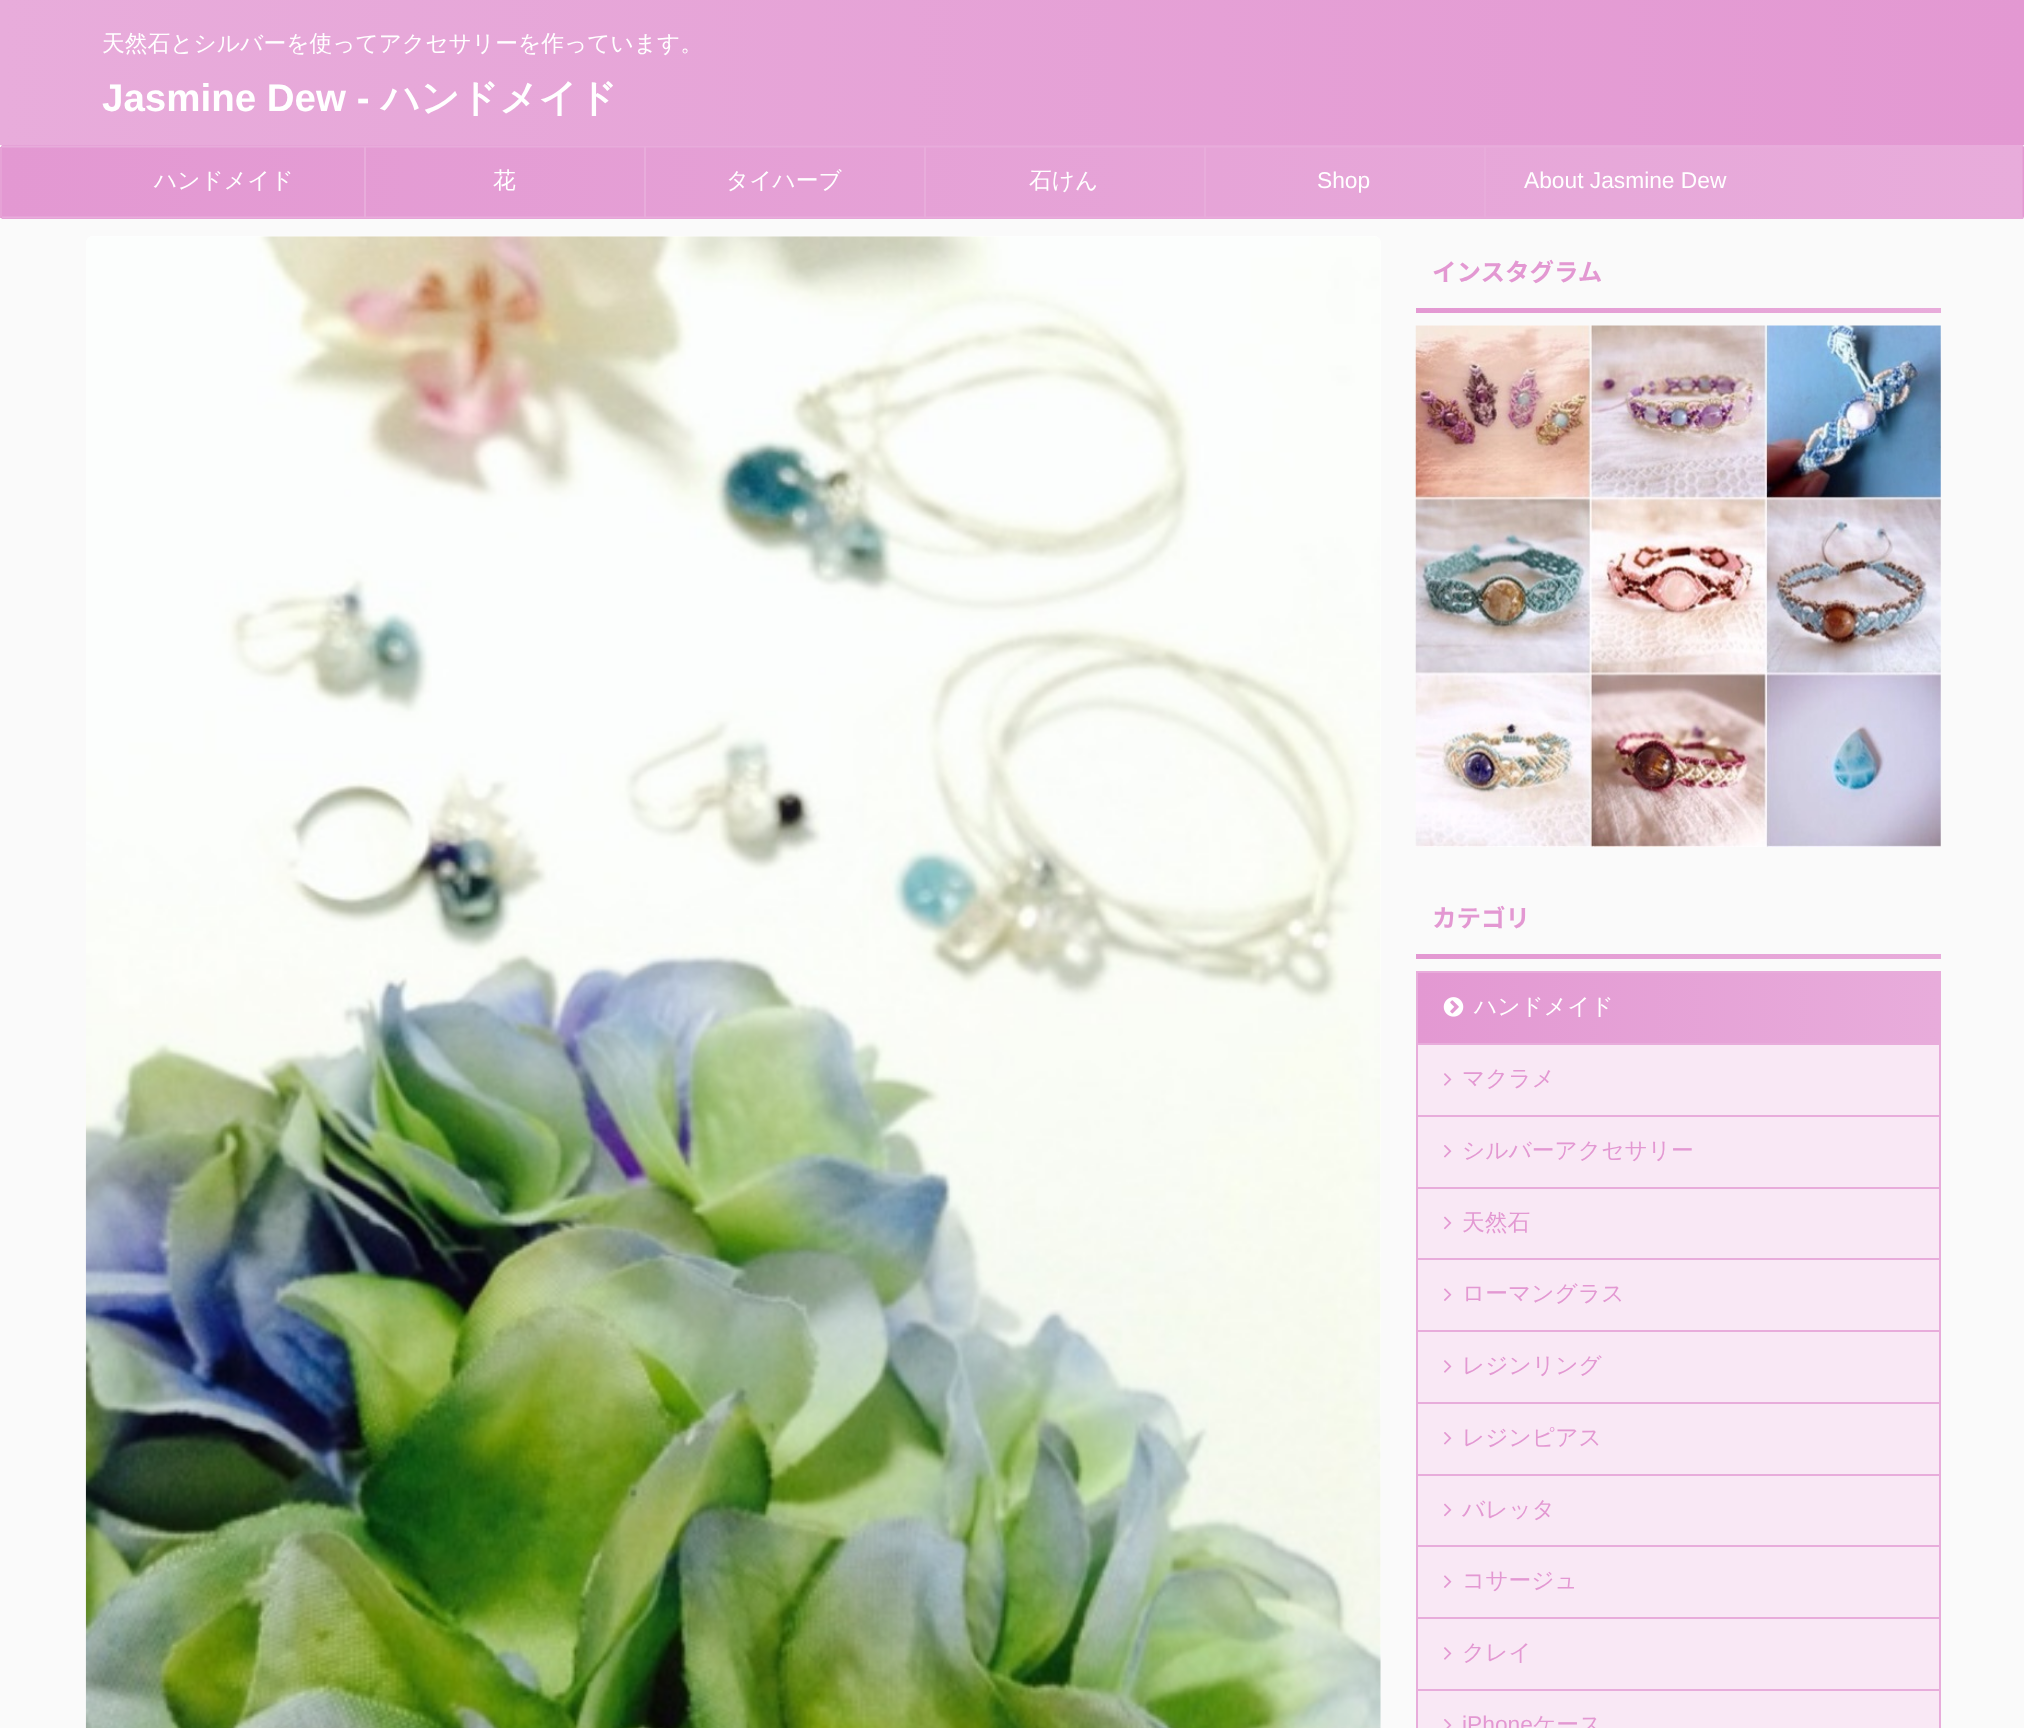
<?xml version="1.0" encoding="UTF-8"?>
<svg xmlns="http://www.w3.org/2000/svg" xmlns:xlink="http://www.w3.org/1999/xlink" width="2024" height="1728">
  <defs>
    <linearGradient id="g1" gradientUnits="userSpaceOnUse" x1="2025" y1="73" x2="0" y2="73"><stop offset="0" stop-color="#e398d2" /><stop offset="1" stop-color="#e8acdb" /></linearGradient>
    <linearGradient id="g2" gradientUnits="userSpaceOnUse" x1="2023" y1="182" x2="1.8" y2="182"><stop offset="0" stop-color="#e8acdb" /><stop offset="1" stop-color="#e398d2" /></linearGradient>
    <linearGradient id="g3" gradientUnits="userSpaceOnUse" x1="1941" y1="311" x2="1416" y2="311"><stop offset="0" stop-color="#e8acdb" /><stop offset="1" stop-color="#e398d2" /></linearGradient>
    <linearGradient id="g4" gradientUnits="userSpaceOnUse" x1="1941" y1="956" x2="1416" y2="956"><stop offset="0" stop-color="#e8acdb" /><stop offset="1" stop-color="#e398d2" /></linearGradient>
    <linearGradient id="g5" gradientUnits="userSpaceOnUse" x1="1939" y1="1008" x2="1418" y2="1008"><stop offset="0" stop-color="#e8acdb" /><stop offset="1" stop-color="#e398d2" /></linearGradient>
  </defs>
  <rect width="100%" height="100%" fill="#fafafa" />
  <rect width="2024" height="145" fill="url(#g1)" />
  <rect x="2" y="145" width="2021" height="74" fill="url(#g2)" />
  <path d="M 1 146.5 h 2022.5" fill="none" stroke="#e8acdb" stroke-width="1.8" />
  <path d="M 2023.5 146.5 v 71" fill="none" stroke="#e398d2" stroke-width="1.8" />
  <path d="M 2023.5 217.5 h -2022.5" fill="none" stroke="#e8acdb" stroke-width="1.8" />
  <rect y="147" width="2" height="71" fill="#e398d2" fill-opacity="0.9" />
  <rect x="364" y="147" width="2" height="70" fill="#e8acdb" />
  <rect x="644" y="147" width="2" height="70" fill="#e8acdb" />
  <rect x="924" y="147" width="2" height="70" fill="#e8acdb" />
  <rect x="1204" y="147" width="2" height="70" fill="#e8acdb" />
  <rect x="1484" y="147" width="2" height="70" fill="#e8acdb" />
  <rect x="86" y="236" width="1295" height="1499" rx="7" fill="#ffffff" />
  <image x="85" y="236" width="1296" height="1492" xlink:href="image1.png" />
  <rect x="1416" y="308" width="525" height="5" fill="url(#g3)" />
  <image x="1415" y="325" width="526" height="522" xlink:href="image2.png" />
  <rect x="1416" y="954" width="525" height="5" fill="url(#g4)" />
  <rect x="1418" y="1045" width="521" height="683" fill="#f9e8f5" />
  <rect x="1416" y="971" width="525" height="2" fill="#e8acdb" />
  <rect x="1939" y="971" width="2" height="757" fill="#e8acdb" />
  <rect x="1416" y="971" width="2" height="757" fill="#e8acdb" />
  <rect x="1418" y="973" width="521" height="70" fill="url(#g5)" />
  <image x="1443" y="997" width="21" height="20" xlink:href="image3.png" />
  <rect x="1418" y="1043" width="521" height="2" fill="#e8acdb" />
  <rect x="1418" y="1115" width="521" height="2" fill="#e8acdb" />
  <image x="1444" y="1073" width="8" height="13" xlink:href="image4.png" />
  <rect x="1418" y="1187" width="521" height="2" fill="#e8acdb" />
  <image x="1444" y="1145" width="8" height="13" xlink:href="image5.png" />
  <rect x="1418" y="1258" width="521" height="2" fill="#e8acdb" />
  <image x="1444" y="1216" width="8" height="14" xlink:href="image6.png" />
  <rect x="1418" y="1330" width="521" height="2" fill="#e8acdb" />
  <image x="1444" y="1288" width="8" height="13" xlink:href="image7.png" />
  <rect x="1418" y="1402" width="521" height="2" fill="#e8acdb" />
  <image x="1444" y="1360" width="8" height="13" xlink:href="image4.png" />
  <rect x="1418" y="1474" width="521" height="2" fill="#e8acdb" />
  <image x="1444" y="1432" width="8" height="13" xlink:href="image5.png" />
  <rect x="1418" y="1545" width="521" height="2" fill="#e8acdb" />
  <image x="1444" y="1503" width="8" height="14" xlink:href="image6.png" />
  <rect x="1418" y="1617" width="521" height="2" fill="#e8acdb" />
  <image x="1444" y="1575" width="8" height="13" xlink:href="image7.png" />
  <rect x="1418" y="1689" width="521" height="2" fill="#e8acdb" />
  <image x="1444" y="1647" width="8" height="13" xlink:href="image4.png" />
  <image x="1444" y="1719" width="8" height="9" xlink:href="image8.png" />
  <text x="102" y="51" style="font-family: WenQuanYi Zen Hei; font-size: 22.75px; font-weight: 500; fill: #ffffff">天然石とシルバーを使ってアクセサリーを作っています。</text>
  <text x="102" y="111" style="font-family: Liberation Sans; font-size: 38.5px; font-weight: bold; fill: #ffffff">Jasmine Dew -</text>
  <text x="381" y="111" style="font-family: WenQuanYi Zen Hei; font-size: 38.5px; font-weight: bold; fill: #ffffff">ハンドメイド</text>
  <text x="154" y="188" style="font-family: WenQuanYi Zen Hei; font-size: 22.75px; font-weight: 500; fill: #ffffff">ハンドメイド</text>
  <text x="493" y="188" style="font-family: WenQuanYi Zen Hei; font-size: 22.75px; font-weight: 500; fill: #ffffff">花</text>
  <text x="726" y="188" style="font-family: WenQuanYi Zen Hei; font-size: 22.75px; font-weight: 500; fill: #ffffff">タイハーブ</text>
  <text x="1029" y="188" style="font-family: WenQuanYi Zen Hei; font-size: 22.75px; font-weight: 500; fill: #ffffff">石けん</text>
  <text x="1317" y="188" style="font-family: Liberation Sans; font-size: 22.75px; fill: #ffffff">Shop</text>
  <text x="1524" y="188" style="font-family: Liberation Sans; font-size: 22.75px; fill: #ffffff">About Jasmine Dew</text>
  <text x="1432" y="281" style="font-family: Noto Sans JP; font-size: 24.5px; font-weight: bold; fill: #e398d2">インスタグラム</text>
  <text x="1432" y="927" style="font-family: Noto Sans JP; font-size: 24.5px; font-weight: bold; fill: #e398d2">カテゴリ</text>
  <text x="1474" y="1014" style="font-family: WenQuanYi Zen Hei; font-size: 22.75px; font-weight: 500; fill: #ffffff">ハンドメイド</text>
  <text x="1462" y="1086" style="font-family: WenQuanYi Zen Hei; font-size: 22.75px; font-weight: 500; fill: #e398d2">マクラメ</text>
  <text x="1462" y="1158" style="font-family: WenQuanYi Zen Hei; font-size: 22.75px; font-weight: 500; fill: #e398d2">シルバーアクセサリー</text>
  <text x="1462" y="1230" style="font-family: WenQuanYi Zen Hei; font-size: 22.75px; font-weight: 500; fill: #e398d2">天然石</text>
  <text x="1462" y="1301" style="font-family: WenQuanYi Zen Hei; font-size: 22.75px; font-weight: 500; fill: #e398d2">ローマングラス</text>
  <text x="1462" y="1373" style="font-family: WenQuanYi Zen Hei; font-size: 22.75px; font-weight: 500; fill: #e398d2">レジンリング</text>
  <text x="1462" y="1445" style="font-family: WenQuanYi Zen Hei; font-size: 22.75px; font-weight: 500; fill: #e398d2">レジンピアス</text>
  <text x="1462" y="1517" style="font-family: WenQuanYi Zen Hei; font-size: 22.75px; font-weight: 500; fill: #e398d2">バレッタ</text>
  <text x="1462" y="1588" style="font-family: WenQuanYi Zen Hei; font-size: 22.75px; font-weight: 500; fill: #e398d2">コサージュ</text>
  <text x="1462" y="1660" style="font-family: WenQuanYi Zen Hei; font-size: 22.75px; font-weight: 500; fill: #e398d2">クレイ</text>
  <text x="1462" y="1732" style="font-family: Liberation Sans; font-size: 22.75px; fill: #e398d2">iPhone</text>
  <text x="1533" y="1732" style="font-family: WenQuanYi Zen Hei; font-size: 22.75px; font-weight: 500; fill: #e398d2">ケース</text>
</svg>
